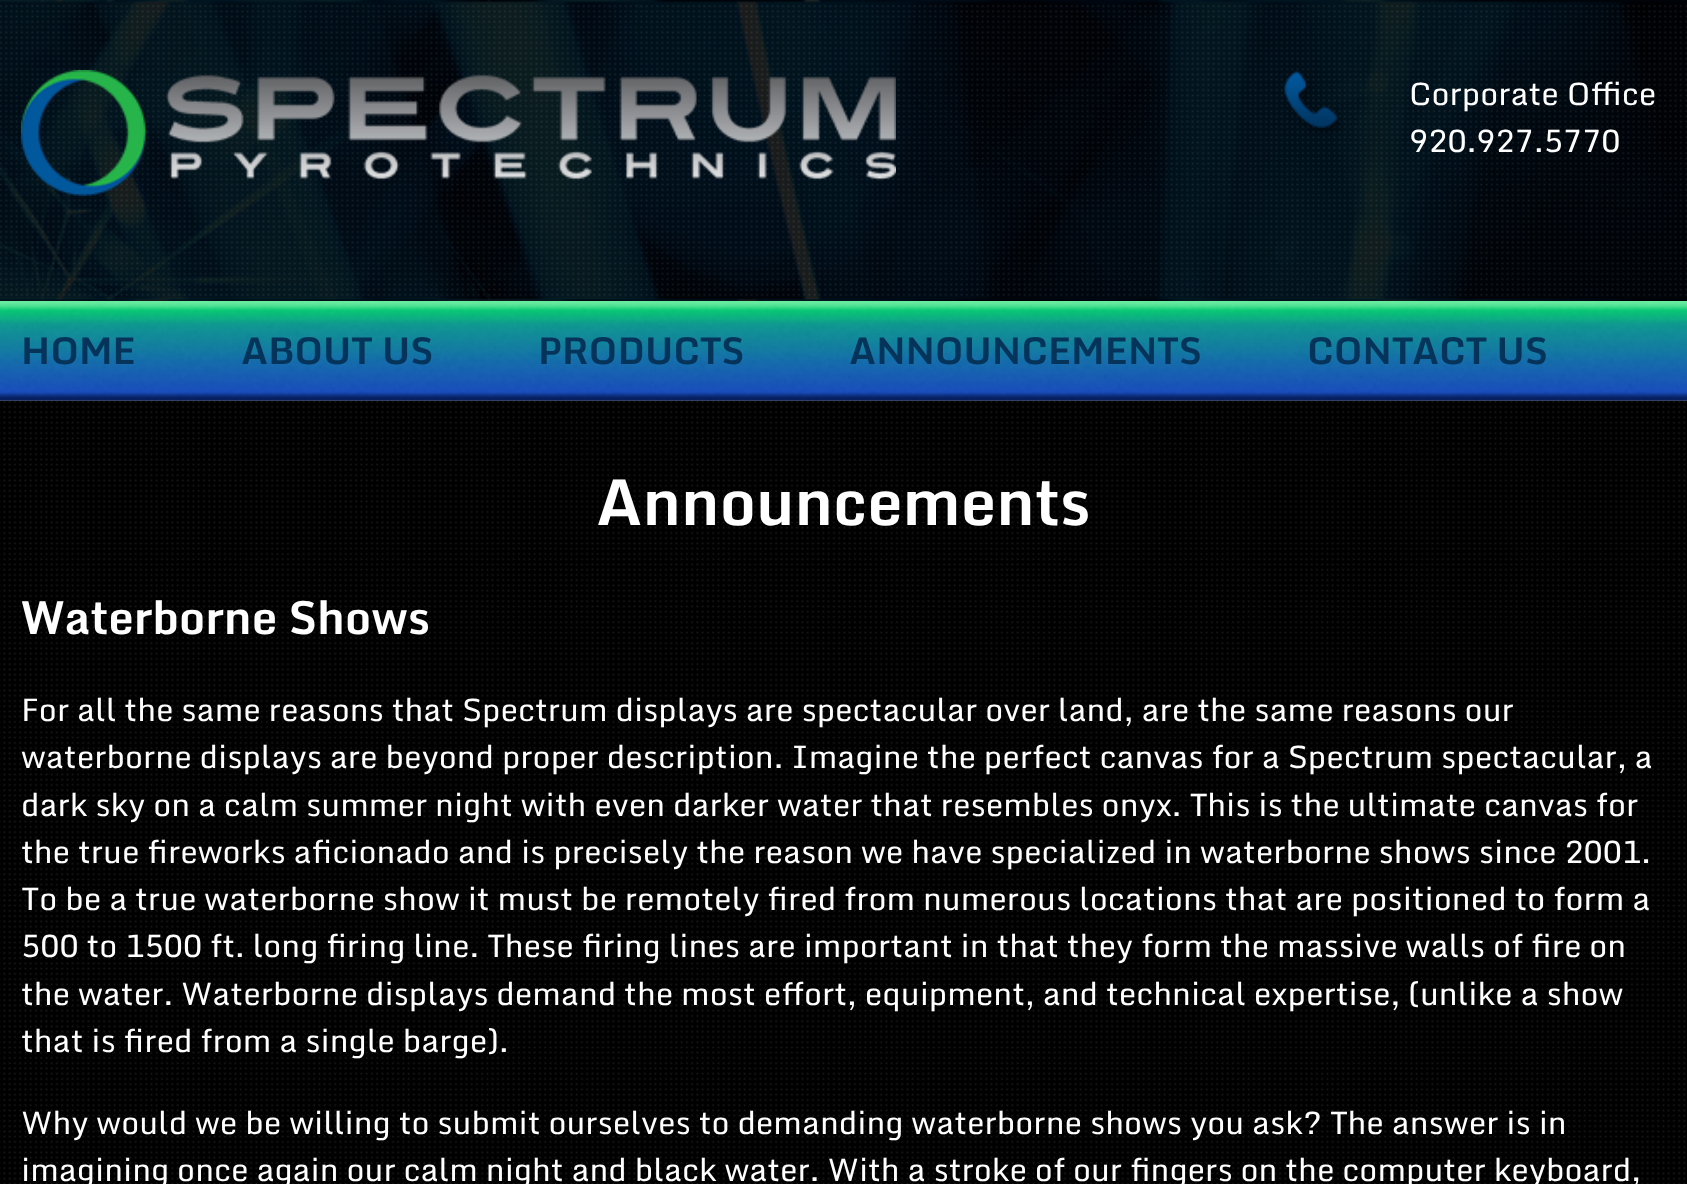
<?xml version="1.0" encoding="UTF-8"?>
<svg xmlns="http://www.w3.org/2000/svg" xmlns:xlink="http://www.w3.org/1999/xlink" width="1687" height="1184">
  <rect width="100%" height="100%" fill="#ffffff" />
  <image x="0" y="0" width="1687" height="301" xlink:href="image1.png" />
  <image x="21" y="70" width="875" height="126" xlink:href="image2.png" />
  <image x="1284" y="71" width="57" height="62" xlink:href="image3.png" />
  <image x="0" y="301" width="1687" height="100" xlink:href="image4.png" />
  <image x="0" y="400" width="1687" height="784" xlink:href="image5.png" />
  <text x="1409" y="105" style="font-family: Monda; font-size: 31.5px; fill: #ffffff">Corporate Office</text>
  <text x="1409" y="152" style="font-family: Monda; font-size: 31.5px; fill: #ffffff">920.927.5770</text>
  <text x="21" y="364" style="font-family: Monda; font-size: 36.75px; font-weight: bold; fill: #053359">HOME</text>
  <text x="241" y="364" style="font-family: Monda; font-size: 36.75px; font-weight: bold; fill: #053359">ABOUT US</text>
  <text x="538" y="364" style="font-family: Monda; font-size: 36.75px; font-weight: bold; fill: #053359">PRODUCTS</text>
  <text x="849" y="364" style="font-family: Monda; font-size: 36.75px; font-weight: bold; fill: #053359">ANNOUNCEMENTS</text>
  <text x="1307" y="364" style="font-family: Monda; font-size: 36.75px; font-weight: bold; fill: #053359">CONTACT US</text>
  <text x="596" y="525" style="font-family: Monda; font-size: 63px; font-weight: bold; fill: #ffffff">Announcements</text>
  <text x="21" y="634" style="font-family: Monda; font-size: 45.5px; font-weight: bold; fill: #ffffff">Waterborne Shows</text>
  <text x="21" y="721" style="font-family: Monda; font-size: 31.5px; fill: #ffffff">For all the same reasons that Spectrum displays are spectacular over land, are the same reasons our</text>
  <text x="21" y="768" style="font-family: Monda; font-size: 31.5px; fill: #ffffff">waterborne displays are beyond proper description. Imagine the perfect canvas for a Spectrum spectacular, a</text>
  <text x="21" y="816" style="font-family: Monda; font-size: 31.5px; fill: #ffffff">dark sky on a calm summer night with even darker water that resembles onyx. This is the ultimate canvas for</text>
  <text x="21" y="863" style="font-family: Monda; font-size: 31.5px; fill: #ffffff">the true fireworks aficionado and is precisely the reason we have specialized in waterborne shows since 2001.</text>
  <text x="21" y="910" style="font-family: Monda; font-size: 31.5px; fill: #ffffff">To be a true waterborne show it must be remotely fired from numerous locations that are positioned to form a</text>
  <text x="21" y="957" style="font-family: Monda; font-size: 31.5px; fill: #ffffff">500 to 1500 ft. long firing line. These firing lines are important in that they form the massive walls of fire on</text>
  <text x="21" y="1005" style="font-family: Monda; font-size: 31.5px; fill: #ffffff">the water. Waterborne displays demand the most effort, equipment, and technical expertise, (unlike a show</text>
  <text x="21" y="1052" style="font-family: Monda; font-size: 31.5px; fill: #ffffff">that is fired from a single barge).</text>
  <text x="21" y="1134" style="font-family: Monda; font-size: 31.5px; fill: #ffffff">Why would we be willing to submit ourselves to demanding waterborne shows you ask? The answer is in</text>
  <text x="21" y="1181" style="font-family: Monda; font-size: 31.5px; fill: #ffffff">imagining once again our calm night and black water. With a stroke of our fingers on the computer keyboard,</text>
</svg>
